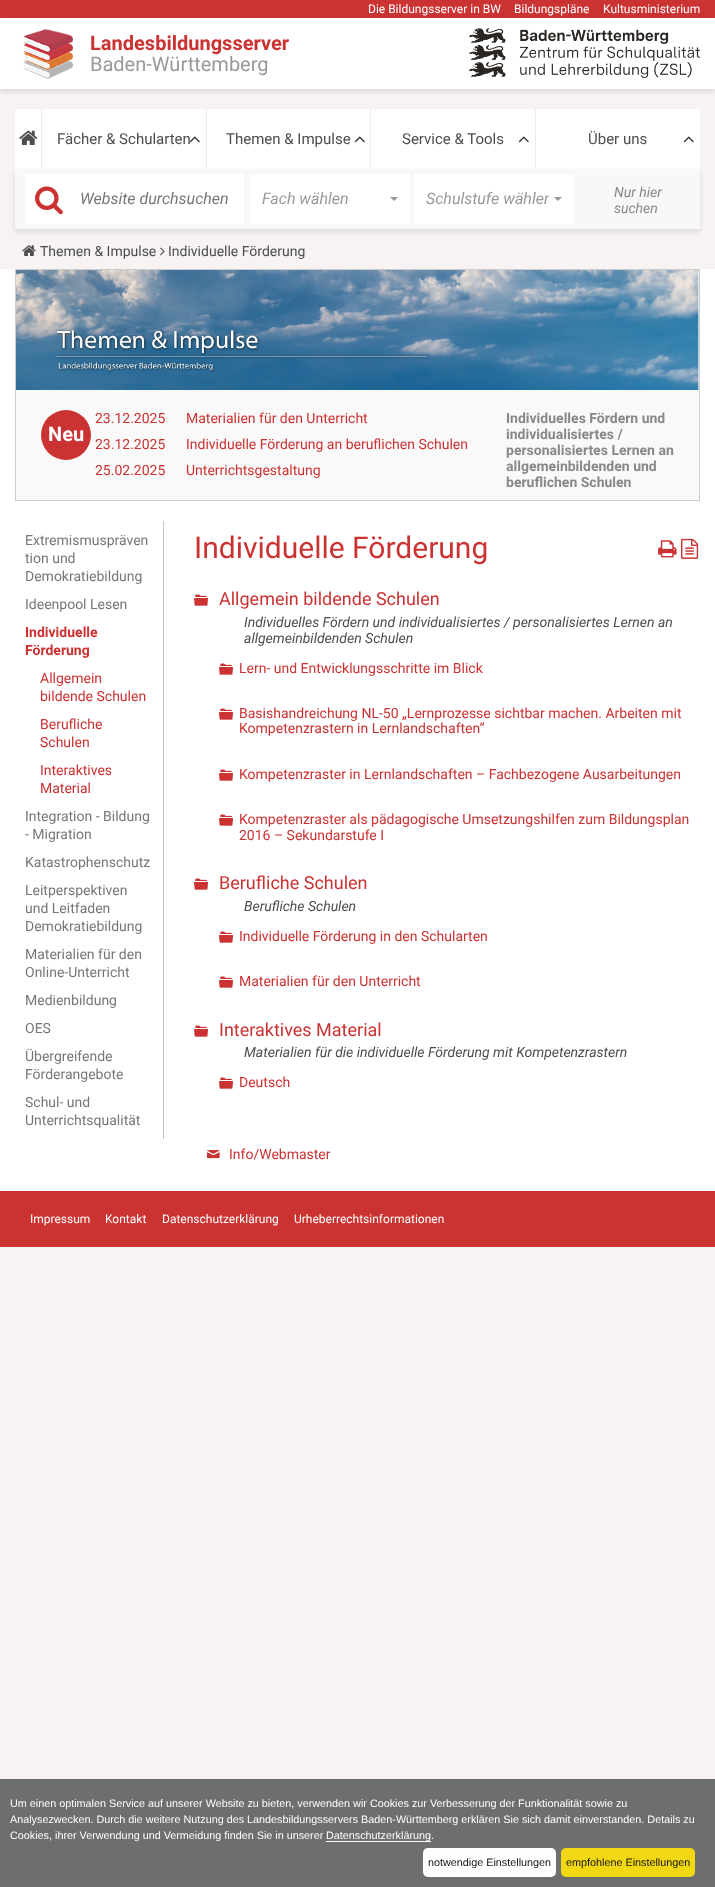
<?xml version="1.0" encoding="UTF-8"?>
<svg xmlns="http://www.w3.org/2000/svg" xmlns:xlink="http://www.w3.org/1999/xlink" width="715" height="1887">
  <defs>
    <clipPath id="clip1"><rect x="426" y="188" width="123" height="22" /></clipPath>
  </defs>
  <rect width="100%" height="100%" fill="#f7f3f3" />
  <rect width="715" height="18" fill="#cb3232" />
  <rect y="21" width="715" height="71" fill="#000000" fill-opacity="0.1" filter="blur(2.5px)" />
  <rect y="18" width="715" height="71" fill="#ffffff" />
  <image x="23" y="29" width="50" height="50" xlink:href="image1.png" />
  <image x="469" y="28" width="231" height="50" xlink:href="image2.png" />
  <rect x="15" y="109" width="26" height="60" fill="#ffffff" />
  <rect x="41" y="109" width="1" height="60" fill="#ececec" />
  <image x="19" y="130" width="19" height="15" xlink:href="image3.png" />
  <rect x="42" y="109" width="164" height="60" fill="#ffffff" />
  <rect x="206" y="109" width="1" height="60" fill="#ececec" />
  <image x="190" y="136" width="10" height="7" xlink:href="image4.png" />
  <rect x="207" y="109" width="163" height="60" fill="#ffffff" />
  <rect x="370" y="109" width="1" height="60" fill="#ececec" />
  <image x="354" y="136" width="11" height="7" xlink:href="image5.png" />
  <rect x="371" y="109" width="164" height="60" fill="#ffffff" />
  <rect x="535" y="109" width="1" height="60" fill="#ececec" />
  <image x="518" y="136" width="11" height="7" xlink:href="image5.png" />
  <rect x="536" y="109" width="164" height="60" fill="#ffffff" />
  <image x="683" y="136" width="11" height="7" xlink:href="image5.png" />
  <rect x="15" y="172" width="685" height="60" fill="#000000" fill-opacity="0.1" filter="blur(2.5px)" />
  <rect x="15" y="169" width="685" height="60" fill="#f8f8f8" />
  <rect x="25" y="174" width="219" height="50" fill="#ffffff" />
  <image x="35" y="186" width="28" height="29" xlink:href="image6.png" />
  <rect x="250" y="174" width="160" height="50" fill="#ffffff" />
  <path d="M 390 197 h 8 l -4 4 z" fill="#999999" />
  <rect x="414" y="174" width="160" height="50" fill="#ffffff" />
  <path d="M 554 197 h 8 l -4 4 z" fill="#999999" />
  <image x="22" y="245" width="14" height="11" xlink:href="image7.png" />
  <image x="160" y="247" width="5" height="9" xlink:href="image8.png" />
  <rect y="269" width="715" height="922" fill="#ffffff" />
  <rect x="16" y="390" width="683" height="110" fill="#f9f9f9" />
  <rect x="15.5" y="269.5" width="684" height="231" fill="none" stroke="#cccccc" />
  <image x="16" y="270" width="683" height="120" xlink:href="image9.png" />
  <circle cx="66" cy="435" r="25" fill="#cb3232" />
  <rect x="163" y="521" width="1" height="618" fill="#c5c5c5" />
  <image x="658" y="540" width="19" height="18" xlink:href="image10.png" />
  <image x="681" y="538" width="18" height="21" xlink:href="image11.png" />
  <image x="194" y="594" width="14" height="12" xlink:href="image12.png" />
  <image x="219" y="663" width="14" height="12" xlink:href="image12.png" />
  <image x="219" y="708" width="14" height="12" xlink:href="image12.png" />
  <image x="219" y="769" width="14" height="12" xlink:href="image12.png" />
  <image x="219" y="814" width="14" height="12" xlink:href="image12.png" />
  <image x="194" y="878" width="14" height="12" xlink:href="image12.png" />
  <image x="219" y="931" width="14" height="12" xlink:href="image12.png" />
  <image x="219" y="976" width="14" height="12" xlink:href="image12.png" />
  <image x="194" y="1025" width="14" height="12" xlink:href="image12.png" />
  <image x="219" y="1077" width="14" height="12" xlink:href="image12.png" />
  <image x="207" y="1150" width="13" height="9" xlink:href="image13.png" />
  <rect y="1191" width="715" height="56" fill="#cb3232" />
  <rect y="1779" width="715" height="108" fill="#6d6e70" />
  <rect x="326" y="1841" width="105" height="1" fill="#fefefe" />
  <rect x="423" y="1848" width="133" height="29" rx="5" fill="#fefefe" />
  <rect x="561" y="1848" width="134" height="29" rx="5" fill="#f1d813" />
  <text x="368" y="13" style="font-family: Roboto; font-size: 12px; fill: #ffffff">Die Bildungsserver in BW</text>
  <text x="514" y="13" style="font-family: Roboto; font-size: 12px; fill: #ffffff">Bildungspläne</text>
  <text x="603" y="13" style="font-family: Roboto; font-size: 12px; fill: #ffffff">Kultusministerium</text>
  <text x="90" y="50" style="font-family: Roboto; font-size: 20px; font-weight: bold; fill: #cb3232">Landesbildungsserver</text>
  <text x="90" y="71" style="font-family: Roboto; font-size: 20px; fill: #999999">Baden-Württemberg</text>
  <text x="57" y="144" style="font-family: Roboto; font-size: 15px; fill: #4d4d4d">Fächer &amp; Schularten</text>
  <text x="226" y="144" style="font-family: Roboto; font-size: 15px; fill: #4d4d4d">Themen &amp; Impulse</text>
  <text x="402" y="144" style="font-family: Roboto; font-size: 15px; fill: #4d4d4d">Service &amp; Tools</text>
  <text x="588" y="144" style="font-family: Roboto; font-size: 15px; fill: #4d4d4d">Über uns</text>
  <text x="80" y="204" style="font-family: Roboto; font-size: 16px; font-style: italic; fill: #777777">Website durchsuchen</text>
  <text x="262" y="204" style="font-family: Roboto; font-size: 16px; font-style: italic; fill: #999999">Fach wählen</text>
  <g clip-path="url(#clip1)">
    <text x="426" y="204" style="font-family: Roboto; font-size: 16px; font-style: italic; fill: #999999">Schulstufe wählen</text>
  </g>
  <text x="614" y="197" style="font-family: Roboto; font-size: 14px; font-style: italic; fill: #888888">Nur hier</text>
  <text x="614" y="213" style="font-family: Roboto; font-size: 14px; font-style: italic; fill: #888888">suchen</text>
  <text x="40" y="256" style="font-family: Roboto; font-size: 14px; fill: #4d4d4d">Themen &amp; Impulse</text>
  <text x="168" y="256" style="font-family: Roboto; font-size: 14px; fill: #4d4d4d">Individuelle Förderung</text>
  <text x="48" y="441" style="font-family: Roboto; font-size: 20px; font-weight: bold; fill: #ffffff">Neu</text>
  <text x="95" y="423" style="font-family: Roboto; font-size: 14px; fill: #cb3232">23.12.2025</text>
  <text x="186" y="423" style="font-family: Roboto; font-size: 14px; fill: #cb3232">Materialien für den Unterricht</text>
  <text x="95" y="449" style="font-family: Roboto; font-size: 14px; fill: #cb3232">23.12.2025</text>
  <text x="186" y="449" style="font-family: Roboto; font-size: 14px; fill: #cb3232">Individuelle Förderung an beruflichen Schulen</text>
  <text x="95" y="475" style="font-family: Roboto; font-size: 14px; fill: #cb3232">25.02.2025</text>
  <text x="186" y="475" style="font-family: Roboto; font-size: 14px; fill: #cb3232">Unterrichtsgestaltung</text>
  <text x="506" y="423" style="font-family: Roboto; font-size: 14px; font-weight: bold; fill: #888888">Individuelles Fördern und</text>
  <text x="506" y="439" style="font-family: Roboto; font-size: 14px; font-weight: bold; fill: #888888">individualisiertes /</text>
  <text x="506" y="455" style="font-family: Roboto; font-size: 14px; font-weight: bold; fill: #888888">personalisiertes Lernen an</text>
  <text x="506" y="471" style="font-family: Roboto; font-size: 14px; font-weight: bold; fill: #888888">allgemeinbildenden und</text>
  <text x="506" y="487" style="font-family: Roboto; font-size: 14px; font-weight: bold; fill: #888888">beruflichen Schulen</text>
  <text x="25" y="545" style="font-family: Roboto; font-size: 14px; fill: #777777">Extremismuspräven</text>
  <text x="25" y="563" style="font-family: Roboto; font-size: 14px; fill: #777777">tion und</text>
  <text x="25" y="581" style="font-family: Roboto; font-size: 14px; fill: #777777">Demokratiebildung</text>
  <text x="25" y="609" style="font-family: Roboto; font-size: 14px; fill: #777777">Ideenpool Lesen</text>
  <text x="25" y="637" style="font-family: Roboto; font-size: 14px; font-weight: bold; fill: #cb3232">Individuelle</text>
  <text x="25" y="655" style="font-family: Roboto; font-size: 14px; font-weight: bold; fill: #cb3232">Förderung</text>
  <text x="40" y="683" style="font-family: Roboto; font-size: 14px; fill: #cb3232">Allgemein</text>
  <text x="40" y="701" style="font-family: Roboto; font-size: 14px; fill: #cb3232">bildende Schulen</text>
  <text x="40" y="729" style="font-family: Roboto; font-size: 14px; fill: #cb3232">Berufliche</text>
  <text x="40" y="747" style="font-family: Roboto; font-size: 14px; fill: #cb3232">Schulen</text>
  <text x="40" y="775" style="font-family: Roboto; font-size: 14px; fill: #cb3232">Interaktives</text>
  <text x="40" y="793" style="font-family: Roboto; font-size: 14px; fill: #cb3232">Material</text>
  <text x="25" y="821" style="font-family: Roboto; font-size: 14px; fill: #777777">Integration - Bildung</text>
  <text x="25" y="839" style="font-family: Roboto; font-size: 14px; fill: #777777">- Migration</text>
  <text x="25" y="867" style="font-family: Roboto; font-size: 14px; fill: #777777">Katastrophenschutz</text>
  <text x="25" y="895" style="font-family: Roboto; font-size: 14px; fill: #777777">Leitperspektiven</text>
  <text x="25" y="913" style="font-family: Roboto; font-size: 14px; fill: #777777">und Leitfaden</text>
  <text x="25" y="931" style="font-family: Roboto; font-size: 14px; fill: #777777">Demokratiebildung</text>
  <text x="25" y="959" style="font-family: Roboto; font-size: 14px; fill: #777777">Materialien für den</text>
  <text x="25" y="977" style="font-family: Roboto; font-size: 14px; fill: #777777">Online-Unterricht</text>
  <text x="25" y="1005" style="font-family: Roboto; font-size: 14px; fill: #777777">Medienbildung</text>
  <text x="25" y="1033" style="font-family: Roboto; font-size: 14px; fill: #777777">OES</text>
  <text x="25" y="1061" style="font-family: Roboto; font-size: 14px; fill: #777777">Übergreifende</text>
  <text x="25" y="1079" style="font-family: Roboto; font-size: 14px; fill: #777777">Förderangebote</text>
  <text x="25" y="1107" style="font-family: Roboto; font-size: 14px; fill: #777777">Schul- und</text>
  <text x="25" y="1125" style="font-family: Roboto; font-size: 14px; fill: #777777">Unterrichtsqualität</text>
  <text x="194" y="558" style="font-family: Roboto; font-size: 30px; fill: #cb3232">Individuelle Förderung</text>
  <text x="219" y="605" style="font-family: Roboto; font-size: 18px; fill: #cb3232">Allgemein bildende Schulen</text>
  <text x="244" y="627" style="font-family: Roboto; font-size: 14px; font-style: italic; fill: #4d4d4d">Individuelles Fördern und individualisiertes / personalisiertes Lernen an</text>
  <text x="244" y="643" style="font-family: Roboto; font-size: 14px; font-style: italic; fill: #4d4d4d">allgemeinbildenden Schulen</text>
  <text x="239" y="673" style="font-family: Roboto; font-size: 14px; fill: #cb3232">Lern- und Entwicklungsschritte im Blick</text>
  <text x="239" y="718" style="font-family: Roboto; font-size: 14px; fill: #cb3232">Basishandreichung NL-50 „Lernprozesse sichtbar machen. Arbeiten mit</text>
  <text x="239" y="733" style="font-family: Roboto; font-size: 14px; fill: #cb3232">Kompetenzrastern in Lernlandschaften“</text>
  <text x="239" y="779" style="font-family: Roboto; font-size: 14px; fill: #cb3232">Kompetenzraster in Lernlandschaften – Fachbezogene Ausarbeitungen</text>
  <text x="239" y="824" style="font-family: Roboto; font-size: 14px; fill: #cb3232">Kompetenzraster als pädagogische Umsetzungshilfen zum Bildungsplan</text>
  <text x="239" y="840" style="font-family: Roboto; font-size: 14px; fill: #cb3232">2016 – Sekundarstufe I</text>
  <text x="219" y="889" style="font-family: Roboto; font-size: 18px; fill: #cb3232">Berufliche Schulen</text>
  <text x="244" y="911" style="font-family: Roboto; font-size: 14px; font-style: italic; fill: #4d4d4d">Berufliche Schulen</text>
  <text x="239" y="941" style="font-family: Roboto; font-size: 14px; fill: #cb3232">Individuelle Förderung in den Schularten</text>
  <text x="239" y="986" style="font-family: Roboto; font-size: 14px; fill: #cb3232">Materialien für den Unterricht</text>
  <text x="219" y="1036" style="font-family: Roboto; font-size: 18px; fill: #cb3232">Interaktives Material</text>
  <text x="244" y="1057" style="font-family: Roboto; font-size: 14px; font-style: italic; fill: #4d4d4d">Materialien für die individuelle Förderung mit Kompetenzrastern</text>
  <text x="239" y="1087" style="font-family: Roboto; font-size: 14px; fill: #cb3232">Deutsch</text>
  <text x="229" y="1159" style="font-family: Roboto; font-size: 14px; fill: #cb3232">Info/Webmaster</text>
  <text x="30" y="1223" style="font-family: Roboto; font-size: 12px; fill: #ffffff">Impressum</text>
  <text x="105" y="1223" style="font-family: Roboto; font-size: 12px; fill: #ffffff">Kontakt</text>
  <text x="162" y="1223" style="font-family: Roboto; font-size: 12px; fill: #ffffff">Datenschutzerklärung</text>
  <text x="294" y="1223" style="font-family: Roboto; font-size: 12px; fill: #ffffff">Urheberrechtsinformationen</text>
  <text x="10" y="1807" style="font-family: Liberation Sans; font-size: 10.8px; fill: #ffffff">Um einen optimalen Service auf unserer Website zu bieten, verwenden wir Cookies zur Verbesserung der Funktionalität sowie zu</text>
  <text x="10" y="1823" style="font-family: Liberation Sans; font-size: 10.8px; fill: #ffffff">Analysezwecken. Durch die weitere Nutzung des Landesbildungsservers Baden-Württemberg erklären Sie sich damit einverstanden. Details zu</text>
  <text x="10" y="1839" style="font-family: Liberation Sans; font-size: 10.8px; fill: #ffffff">Cookies, ihrer Verwendung und Vermeidung finden Sie in unserer</text>
  <text x="326" y="1839" style="font-family: Liberation Sans; font-size: 10.8px; fill: #ffffff">Datenschutzerklärung.</text>
  <text x="428" y="1866" style="font-family: Liberation Sans; font-size: 10.8px; fill: #141313">notwendige Einstellungen</text>
  <text x="566" y="1866" style="font-family: Liberation Sans; font-size: 10.8px; fill: #141313">empfohlene Einstellungen</text>
</svg>
